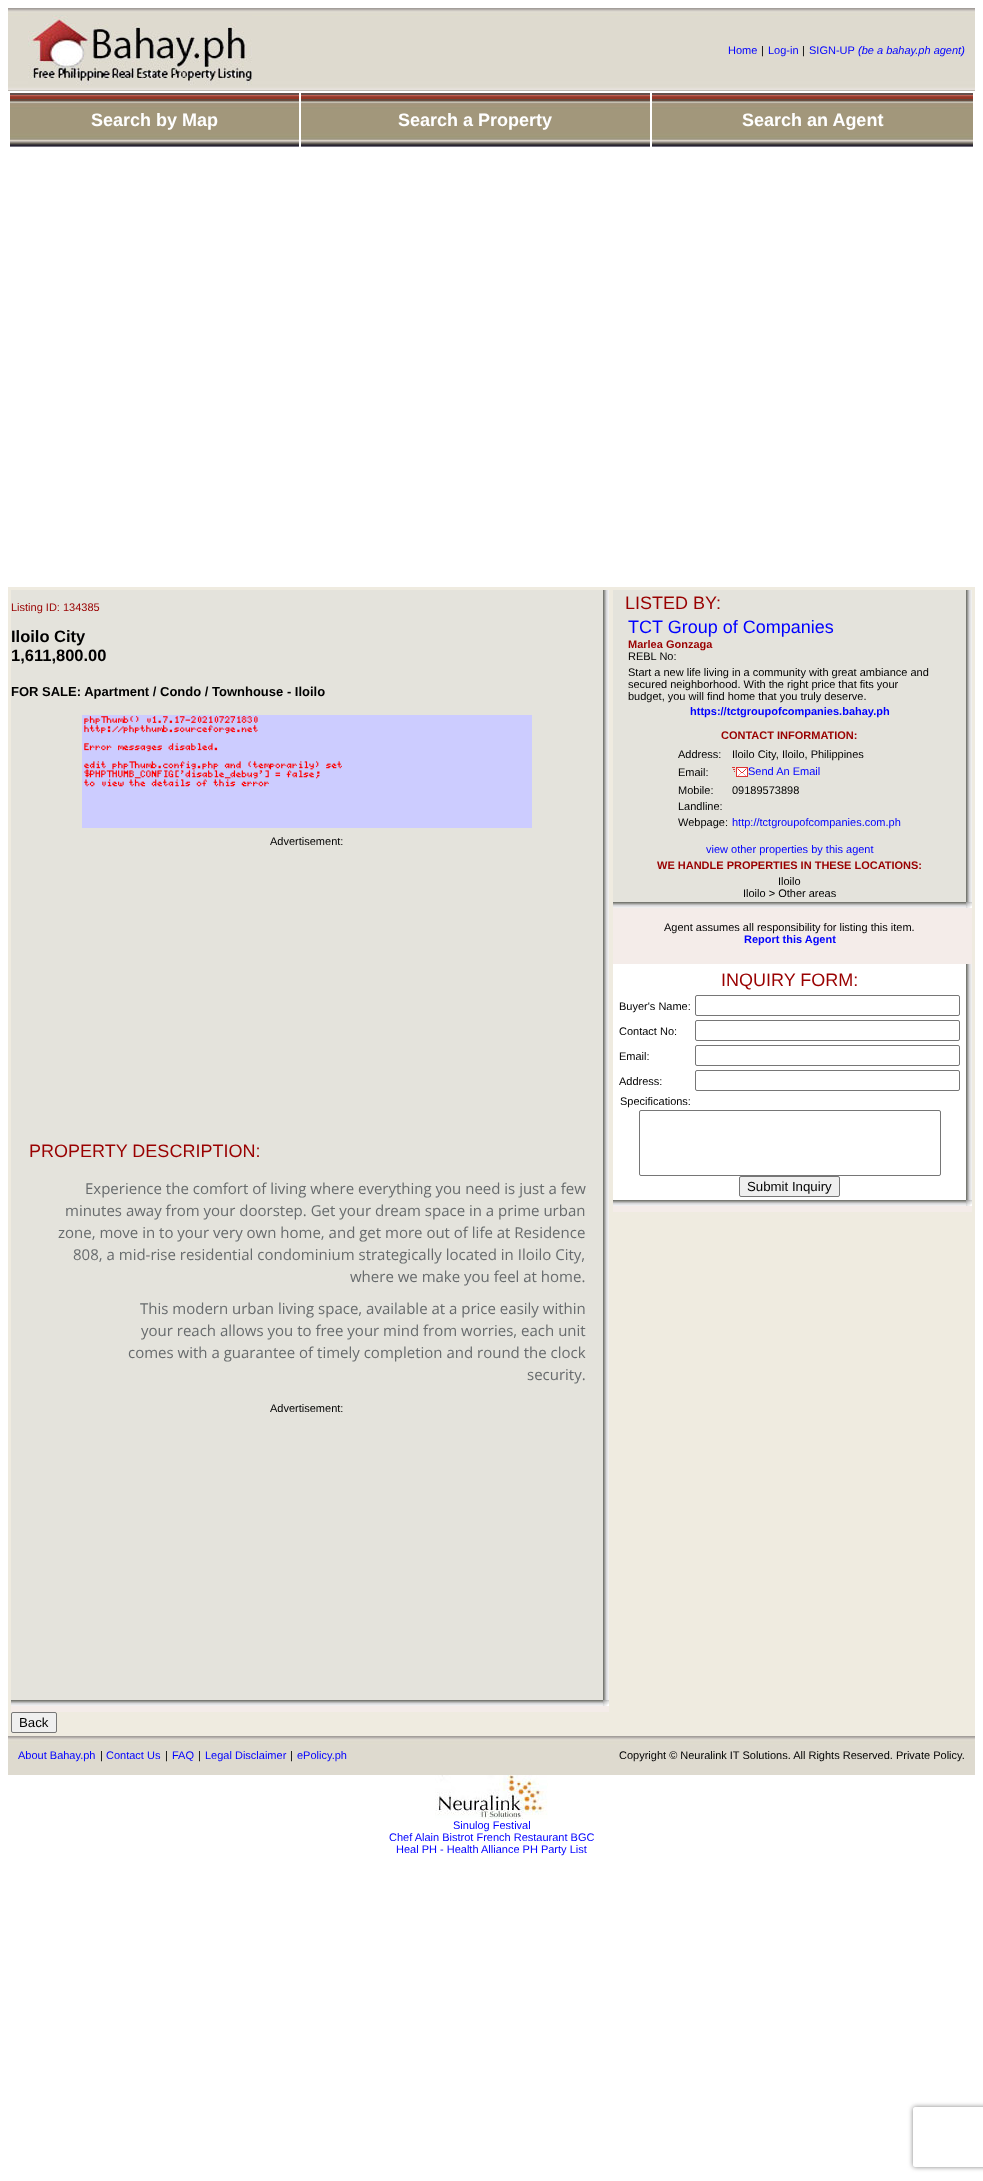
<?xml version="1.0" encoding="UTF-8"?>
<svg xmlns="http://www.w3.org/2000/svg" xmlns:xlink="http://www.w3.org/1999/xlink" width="983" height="2181">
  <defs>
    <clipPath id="clip1"><path d="M 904 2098 h 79 v 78 h -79 z m 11 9 h 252 c 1 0 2 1 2 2 v 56 c 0 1 -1 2 -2 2 h -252 c -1 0 -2 -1 -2 -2 v -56 c 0 -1 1 -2 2 -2 z" clip-rule="evenodd" /></clipPath>
  </defs>
  <rect width="100%" height="100%" fill="#ffffff" />
  <image x="8" y="8" width="387" height="83" xlink:href="image1.png" />
  <image x="28" y="15" width="224" height="70" xlink:href="image2.png" />
  <image x="395" y="8" width="580" height="83" xlink:href="image3.png" />
  <image x="10" y="93" width="289" height="55" xlink:href="image4.png" />
  <image x="301" y="93" width="349" height="55" xlink:href="image5.png" />
  <image x="652" y="93" width="321" height="55" xlink:href="image6.png" />
  <rect x="8" y="587" width="967" height="1149" fill="#efebe0" />
  <rect x="11" y="590" width="592" height="1110" fill="#e4e3dc" />
  <image x="82" y="715" width="450" height="113" xlink:href="image7.png" />
  <image x="603" y="590" width="6" height="1110" xlink:href="image8.png" />
  <rect x="11" y="1706" width="592" height="6" fill="#f4ece9" />
  <image x="11" y="1700" width="592" height="6" xlink:href="image9.png" />
  <rect x="603" y="1700" width="6" height="12" fill="#f4ece9" />
  <image x="603" y="1700" width="6" height="6" xlink:href="image10.png" />
  <rect x="11.5" y="1712.5" width="45" height="20" rx="1.5" fill="#efefef" stroke="#767676" />
  <rect x="613" y="590" width="353" height="312" fill="#e4e3dc" />
  <image x="732" y="767" width="16" height="10" xlink:href="image11.png" />
  <image x="966" y="590" width="6" height="312" xlink:href="image12.png" />
  <rect x="613" y="908" width="353" height="56" fill="#f4ece9" />
  <image x="613" y="902" width="353" height="6" xlink:href="image13.png" />
  <rect x="966" y="902" width="6" height="62" fill="#f4ece9" />
  <image x="966" y="902" width="6" height="6" xlink:href="image10.png" />
  <rect x="613" y="964" width="353" height="236" fill="#ffffff" />
  <rect x="695.5" y="995.5" width="264" height="20" rx="1.5" fill="none" stroke="#767676" />
  <rect x="695.5" y="1020.5" width="264" height="20" rx="1.5" fill="none" stroke="#767676" />
  <rect x="695.5" y="1045.5" width="264" height="20" rx="1.5" fill="none" stroke="#767676" />
  <rect x="695.5" y="1070.5" width="264" height="20" rx="1.5" fill="none" stroke="#767676" />
  <rect x="639.5" y="1110.5" width="301" height="65" rx="1.5" fill="none" stroke="#767676" />
  <rect x="739.5" y="1176.5" width="100" height="20" rx="1.5" fill="#efefef" stroke="#767676" />
  <g clip-path="url(#clip1)">
    <rect x="913" y="2107" width="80" height="60" rx="2" fill="#808080" filter="blur(2.5px)" />
  </g>
  <image x="966" y="964" width="6" height="236" xlink:href="image14.png" />
  <rect x="613" y="1206" width="353" height="6" fill="#f4ece9" />
  <image x="613" y="1200" width="353" height="6" xlink:href="image13.png" />
  <rect x="966" y="1200" width="6" height="12" fill="#f4ece9" />
  <image x="966" y="1200" width="6" height="6" xlink:href="image10.png" />
  <image x="8" y="1736" width="470" height="39" xlink:href="image15.png" />
  <image x="478" y="1736" width="4" height="39" xlink:href="image16.png" />
  <image x="482" y="1736" width="493" height="39" xlink:href="image17.png" />
  <image x="435" y="1775" width="113" height="44" xlink:href="image18.png" />
  <text x="728" y="54" style="font-family: Liberation Sans; font-size: 11px; fill: #0000ff">Home</text>
  <text x="761" y="54" style="font-family: Liberation Sans; font-size: 11px; fill: #000000">|</text>
  <text x="768" y="54" style="font-family: Liberation Sans; font-size: 11px; fill: #0000ff">Log-in</text>
  <text x="802" y="54" style="font-family: Liberation Sans; font-size: 11px; fill: #000000">|</text>
  <text x="809" y="54" style="font-family: Liberation Sans; font-size: 11px; fill: #0000ff">SIGN-UP</text>
  <text x="858" y="54" style="font-family: Liberation Sans; font-size: 11px; font-style: italic; fill: #0000ff">(be a bahay.ph agent)</text>
  <text x="91" y="126" style="font-family: Liberation Sans; font-size: 18px; font-weight: bold; fill: #ffffff">Search by Map</text>
  <text x="398" y="126" style="font-family: Liberation Sans; font-size: 18px; font-weight: bold; fill: #ffffff">Search a Property</text>
  <text x="742" y="126" style="font-family: Liberation Sans; font-size: 18px; font-weight: bold; fill: #ffffff">Search an Agent</text>
  <text x="11" y="611" style="font-family: Liberation Sans; font-size: 11px; fill: #990000">Listing ID: 134385</text>
  <text x="11" y="642" style="font-family: Liberation Sans; font-size: 16.5px; font-weight: bold; fill: #000000">Iloilo City</text>
  <text x="11" y="661" style="font-family: Liberation Sans; font-size: 16.5px; font-weight: bold; fill: #000000">1,611,800.00</text>
  <text x="11" y="696" style="font-family: Liberation Sans; font-size: 13px; font-weight: bold; fill: #000000">FOR SALE: Apartment / Condo / Townhouse - Iloilo</text>
  <text x="270" y="845" style="font-family: Liberation Sans; font-size: 11px; fill: #000000">Advertisement:</text>
  <text x="29" y="1157" style="font-family: Liberation Sans; font-size: 18px; fill: #990000">PROPERTY DESCRIPTION:</text>
  <text x="85" y="1194" style="font-family: Open Sans; font-size: 15px; fill: #676b6d">Experience the comfort of living where everything you need is just a few</text>
  <text x="65" y="1216" style="font-family: Open Sans; font-size: 15px; fill: #676b6d">minutes away from your doorstep. Get your dream space in a prime urban</text>
  <text x="58" y="1238" style="font-family: Open Sans; font-size: 15px; fill: #676b6d">zone, move in to your very own home, and get more out of life at Residence</text>
  <text x="73" y="1260" style="font-family: Open Sans; font-size: 15px; fill: #676b6d">808, a mid-rise residential condominium strategically located in Iloilo City,</text>
  <text x="350" y="1282" style="font-family: Open Sans; font-size: 15px; fill: #676b6d">where we make you feel at home.</text>
  <text x="140" y="1314" style="font-family: Open Sans; font-size: 15px; fill: #676b6d">This modern urban living space, available at a price easily within</text>
  <text x="141" y="1336" style="font-family: Open Sans; font-size: 15px; fill: #676b6d">your reach allows you to free your mind from worries, each unit</text>
  <text x="128" y="1358" style="font-family: Open Sans; font-size: 15px; fill: #676b6d">comes with a guarantee of timely completion and round the clock</text>
  <text x="527" y="1380" style="font-family: Open Sans; font-size: 15px; fill: #676b6d">security.</text>
  <text x="270" y="1412" style="font-family: Liberation Sans; font-size: 11px; fill: #000000">Advertisement:</text>
  <text x="19" y="1727" style="font-family: Liberation Sans; font-size: 13.25px; fill: #000000">Back</text>
  <text x="625" y="609" style="font-family: Liberation Sans; font-size: 18px; fill: #990000">LISTED BY:</text>
  <text x="628" y="633" style="font-family: Liberation Sans; font-size: 18px; fill: #0000ff">TCT Group of Companies</text>
  <text x="628" y="648" style="font-family: Liberation Sans; font-size: 11px; font-weight: bold; fill: #990000">Marlea Gonzaga</text>
  <text x="628" y="660" style="font-family: Liberation Sans; font-size: 11px; fill: #000000">REBL No:</text>
  <text x="628" y="676" style="font-family: Liberation Sans; font-size: 11px; fill: #000000">Start a new life living in a community with great ambiance and</text>
  <text x="628" y="688" style="font-family: Liberation Sans; font-size: 11px; fill: #000000">secured neighborhood. With the right price that fits your</text>
  <text x="628" y="700" style="font-family: Liberation Sans; font-size: 11px; fill: #000000">budget, you will find home that you truly deserve.</text>
  <text x="690" y="715" style="font-family: Liberation Sans; font-size: 11px; font-weight: bold; fill: #0000ff">https://tctgroupofcompanies.bahay.ph</text>
  <text x="721" y="739" style="font-family: Liberation Sans; font-size: 11px; font-weight: bold; fill: #990000">CONTACT INFORMATION:</text>
  <text x="678" y="758" style="font-family: Liberation Sans; font-size: 11px; fill: #000000">Address:</text>
  <text x="732" y="758" style="font-family: Liberation Sans; font-size: 11px; fill: #000000">Iloilo City, Iloilo, Philippines</text>
  <text x="678" y="776" style="font-family: Liberation Sans; font-size: 11px; fill: #000000">Email:</text>
  <text x="748" y="775" style="font-family: Liberation Sans; font-size: 11px; fill: #0000ff">Send An Email</text>
  <text x="678" y="794" style="font-family: Liberation Sans; font-size: 11px; fill: #000000">Mobile:</text>
  <text x="732" y="794" style="font-family: Liberation Sans; font-size: 11px; fill: #000000">09189573898</text>
  <text x="678" y="810" style="font-family: Liberation Sans; font-size: 11px; fill: #000000">Landline:</text>
  <text x="678" y="826" style="font-family: Liberation Sans; font-size: 11px; fill: #000000">Webpage:</text>
  <text x="732" y="826" style="font-family: Liberation Sans; font-size: 11px; fill: #0000ff">http://tctgroupofcompanies.com.ph</text>
  <text x="706" y="853" style="font-family: Liberation Sans; font-size: 11px; fill: #0000ff">view other properties by this agent</text>
  <text x="657" y="869" style="font-family: Liberation Sans; font-size: 11px; font-weight: bold; fill: #990000">WE HANDLE PROPERTIES IN THESE LOCATIONS:</text>
  <text x="778" y="885" style="font-family: Liberation Sans; font-size: 11px; fill: #000000">Iloilo</text>
  <text x="743" y="897" style="font-family: Liberation Sans; font-size: 11px; fill: #000000">Iloilo &gt; Other areas</text>
  <text x="664" y="931" style="font-family: Liberation Sans; font-size: 11px; fill: #000000">Agent assumes all responsibility for listing this item.</text>
  <text x="744" y="943" style="font-family: Liberation Sans; font-size: 11px; font-weight: bold; fill: #0000ff">Report this Agent</text>
  <text x="721" y="986" style="font-family: Liberation Sans; font-size: 18px; fill: #990000">INQUIRY FORM:</text>
  <text x="619" y="1010" style="font-family: Liberation Sans; font-size: 11px; fill: #000000">Buyer's Name:</text>
  <text x="619" y="1035" style="font-family: Liberation Sans; font-size: 11px; fill: #000000">Contact No:</text>
  <text x="619" y="1060" style="font-family: Liberation Sans; font-size: 11px; fill: #000000">Email:</text>
  <text x="619" y="1085" style="font-family: Liberation Sans; font-size: 11px; fill: #000000">Address:</text>
  <text x="620" y="1105" style="font-family: Liberation Sans; font-size: 11px; fill: #000000">Specifications:</text>
  <text x="747" y="1191" style="font-family: Liberation Sans; font-size: 13.25px; fill: #000000">Submit Inquiry</text>
  <text x="18" y="1759" style="font-family: Liberation Sans; font-size: 11px; fill: #0000ff">About Bahay.ph</text>
  <text x="100" y="1759" style="font-family: Liberation Sans; font-size: 11px; fill: #000000">|</text>
  <text x="106" y="1759" style="font-family: Liberation Sans; font-size: 11px; fill: #0000ff">Contact Us</text>
  <text x="165" y="1759" style="font-family: Liberation Sans; font-size: 11px; fill: #000000">|</text>
  <text x="172" y="1759" style="font-family: Liberation Sans; font-size: 11px; fill: #0000ff">FAQ</text>
  <text x="198" y="1759" style="font-family: Liberation Sans; font-size: 11px; fill: #000000">|</text>
  <text x="205" y="1759" style="font-family: Liberation Sans; font-size: 11px; fill: #0000ff">Legal Disclaimer</text>
  <text x="290" y="1759" style="font-family: Liberation Sans; font-size: 11px; fill: #000000">|</text>
  <text x="297" y="1759" style="font-family: Liberation Sans; font-size: 11px; fill: #0000ff">ePolicy.ph</text>
  <text x="619" y="1759" style="font-family: Liberation Sans; font-size: 11px; fill: #000000">Copyright © Neuralink IT Solutions. All Rights Reserved. Private Policy.</text>
  <text x="453" y="1829" style="font-family: Liberation Sans; font-size: 11px; fill: #0000ff">Sinulog Festival</text>
  <text x="389" y="1841" style="font-family: Liberation Sans; font-size: 11px; fill: #0000ff">Chef Alain Bistrot French Restaurant BGC</text>
  <text x="396" y="1853" style="font-family: Liberation Sans; font-size: 11px; fill: #0000ff">Heal PH - Health Alliance PH Party List</text>
</svg>
